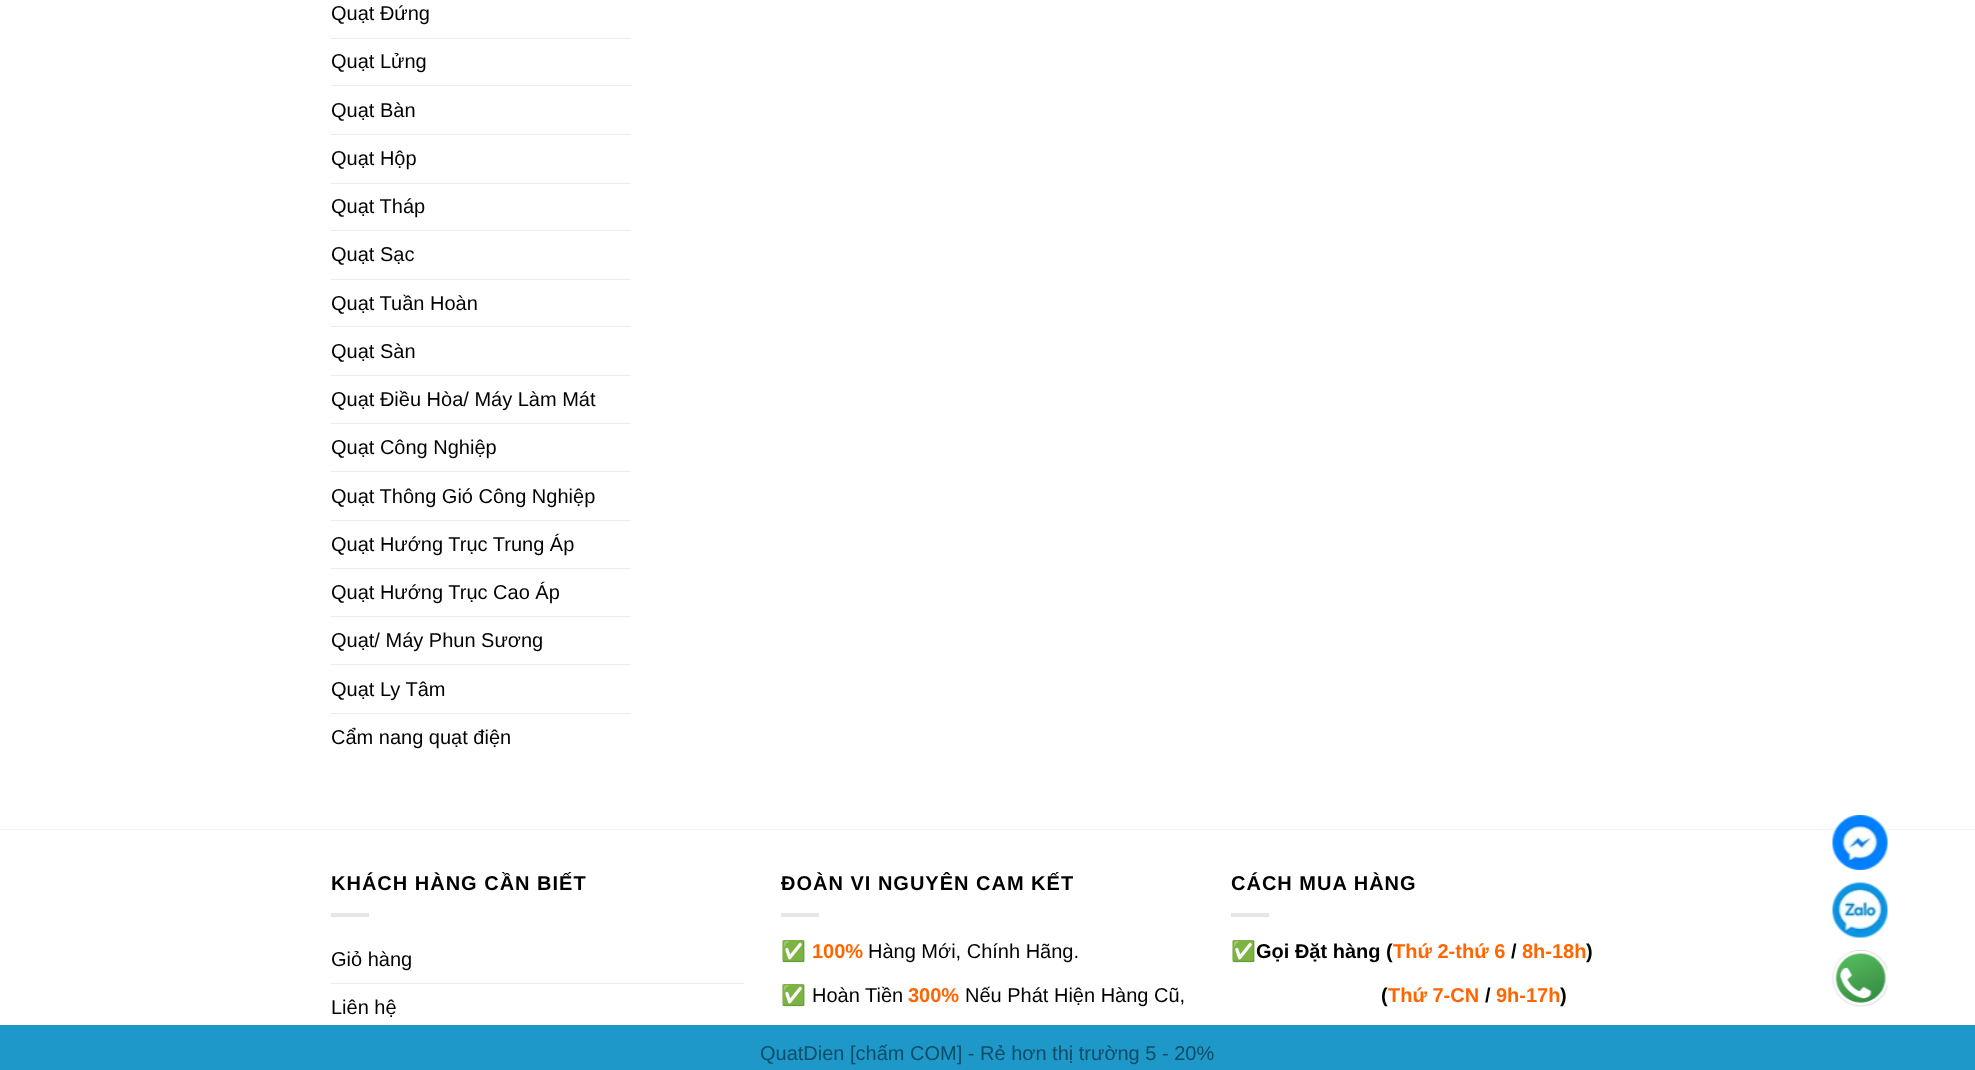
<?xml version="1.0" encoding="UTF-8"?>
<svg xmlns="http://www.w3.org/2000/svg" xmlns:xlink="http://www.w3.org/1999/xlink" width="1975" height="1070">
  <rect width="100%" height="100%" fill="#ffffff" />
  <rect x="331" y="38" width="300" height="1" fill="#ececec" />
  <rect x="331" y="85" width="300" height="1" fill="#ececec" />
  <rect x="331" y="134" width="300" height="1" fill="#ececec" />
  <rect x="331" y="183" width="300" height="1" fill="#ececec" />
  <rect x="331" y="230" width="300" height="1" fill="#ececec" />
  <rect x="331" y="279" width="300" height="1" fill="#ececec" />
  <rect x="331" y="326" width="300" height="1" fill="#ececec" />
  <rect x="331" y="375" width="300" height="1" fill="#ececec" />
  <rect x="331" y="423" width="300" height="1" fill="#ececec" />
  <rect x="331" y="471" width="300" height="1" fill="#ececec" />
  <rect x="331" y="520" width="300" height="1" fill="#ececec" />
  <rect x="331" y="568" width="300" height="1" fill="#ececec" />
  <rect x="331" y="616" width="300" height="1" fill="#ececec" />
  <rect x="331" y="664" width="300" height="1" fill="#ececec" />
  <rect x="331" y="713" width="300" height="1" fill="#ececec" />
  <rect y="829" width="1975" height="1" fill="#f2f2f2" />
  <rect x="331" y="913" width="38" height="4" fill="#e6e6e6" />
  <rect x="331" y="983" width="413" height="1" fill="#ececec" />
  <rect x="781" y="913" width="38" height="4" fill="#e6e6e6" />
  <rect x="1231" y="913" width="38" height="4" fill="#e6e6e6" />
  <rect y="1025" width="1975" height="45" fill="#1e98c9" />
  <image x="1832" y="815" width="56" height="55" xlink:href="image1.png" />
  <image x="1832" y="882" width="56" height="56" xlink:href="image2.png" />
  <image x="1832" y="950" width="56" height="57" xlink:href="image3.png" />
  <text x="331" y="20" style="font-family: Liberation Sans; font-size: 20px; fill: #000000">Quạt Đứng</text>
  <text x="331" y="68" style="font-family: Liberation Sans; font-size: 20px; fill: #000000">Quạt Lửng</text>
  <text x="331" y="117" style="font-family: Liberation Sans; font-size: 20px; fill: #000000">Quạt Bàn</text>
  <text x="331" y="165" style="font-family: Liberation Sans; font-size: 20px; fill: #000000">Quạt Hộp</text>
  <text x="331" y="213" style="font-family: Liberation Sans; font-size: 20px; fill: #000000">Quạt Tháp</text>
  <text x="331" y="261" style="font-family: Liberation Sans; font-size: 20px; fill: #000000">Quạt Sạc</text>
  <text x="331" y="310" style="font-family: Liberation Sans; font-size: 20px; fill: #000000">Quạt Tuần Hoàn</text>
  <text x="331" y="358" style="font-family: Liberation Sans; font-size: 20px; fill: #000000">Quạt Sàn</text>
  <text x="331" y="406" style="font-family: Liberation Sans; font-size: 20px; fill: #000000">Quạt Điều Hòa/ Máy Làm Mát</text>
  <text x="331" y="454" style="font-family: Liberation Sans; font-size: 20px; fill: #000000">Quạt Công Nghiệp</text>
  <text x="331" y="503" style="font-family: Liberation Sans; font-size: 20px; fill: #000000">Quạt Thông Gió Công Nghiệp</text>
  <text x="331" y="551" style="font-family: Liberation Sans; font-size: 20px; fill: #000000">Quạt Hướng Trục Trung Áp</text>
  <text x="331" y="599" style="font-family: Liberation Sans; font-size: 20px; fill: #000000">Quạt Hướng Trục Cao Áp</text>
  <text x="331" y="647" style="font-family: Liberation Sans; font-size: 20px; fill: #000000">Quạt/ Máy Phun Sương</text>
  <text x="331" y="696" style="font-family: Liberation Sans; font-size: 20px; fill: #000000">Quạt Ly Tâm</text>
  <text x="331" y="744" style="font-family: Liberation Sans; font-size: 20px; fill: #000000">Cẩm nang quạt điện</text>
  <text x="331" y="890" style="font-family: Liberation Sans; font-size: 20px; font-weight: bold; letter-spacing: 1px; fill: #000000">KHÁCH HÀNG CẦN BIẾT</text>
  <text x="331" y="966" style="font-family: Liberation Sans; font-size: 20px; fill: #000000">Giỏ hàng</text>
  <text x="331" y="1014" style="font-family: Liberation Sans; font-size: 20px; fill: #000000">Liên hệ</text>
  <text x="781" y="890" style="font-family: Liberation Sans; font-size: 20px; font-weight: bold; letter-spacing: 1px; fill: #000000">ĐOÀN VI NGUYÊN CAM KẾT</text>
  <text x="781" y="958" style="font-family: Noto Color Emoji; font-size: 20px; font-weight: bold; fill: #ff6600">✅</text>
  <text x="812" y="958" style="font-family: Liberation Sans; font-size: 20px; font-weight: bold; fill: #ff6600">100%</text>
  <text x="868" y="958" style="font-family: Liberation Sans; font-size: 20px; fill: #000000">Hàng Mới, Chính Hãng.</text>
  <text x="781" y="1002" style="font-family: Noto Color Emoji; font-size: 20px; font-weight: bold; fill: #ff6600">✅</text>
  <text x="812" y="1002" style="font-family: Liberation Sans; font-size: 20px; fill: #000000">Hoàn Tiền</text>
  <text x="908" y="1002" style="font-family: Liberation Sans; font-size: 20px; font-weight: bold; fill: #ff6600">300%</text>
  <text x="965" y="1002" style="font-family: Liberation Sans; font-size: 20px; fill: #000000">Nếu Phát Hiện Hàng Cũ,</text>
  <text x="1231" y="890" style="font-family: Liberation Sans; font-size: 20px; font-weight: bold; letter-spacing: 1px; fill: #000000">CÁCH MUA HÀNG</text>
  <text x="1231" y="958" style="font-family: Noto Color Emoji; font-size: 20px; font-weight: bold; fill: #000000">✅</text>
  <text x="1256" y="958" style="font-family: Liberation Sans; font-size: 20px; font-weight: bold; fill: #000000">Gọi Đặt hàng (</text>
  <text x="1393" y="958" style="font-family: Liberation Sans; font-size: 20px; font-weight: bold; fill: #ff6600">Thứ 2-thứ 6</text>
  <text x="1511" y="958" style="font-family: Liberation Sans; font-size: 20px; font-weight: bold; fill: #000000">/</text>
  <text x="1522" y="958" style="font-family: Liberation Sans; font-size: 20px; font-weight: bold; fill: #ff6600">8h-18h</text>
  <text x="1586" y="958" style="font-family: Liberation Sans; font-size: 20px; font-weight: bold; fill: #000000">)</text>
  <text x="1381" y="1002" style="font-family: Liberation Sans; font-size: 20px; font-weight: bold; fill: #000000">(</text>
  <text x="1388" y="1002" style="font-family: Liberation Sans; font-size: 20px; font-weight: bold; fill: #ff6600">Thứ 7-CN</text>
  <text x="1485" y="1002" style="font-family: Liberation Sans; font-size: 20px; font-weight: bold; fill: #000000">/</text>
  <text x="1496" y="1002" style="font-family: Liberation Sans; font-size: 20px; font-weight: bold; fill: #ff6600">9h-17h</text>
  <text x="1560" y="1002" style="font-family: Liberation Sans; font-size: 20px; font-weight: bold; fill: #000000">)</text>
  <text x="760" y="1060" style="font-family: Liberation Sans; font-size: 20px; fill: #0f4c65">QuatDien [chấm COM] - Rẻ hơn thị trường 5 - 20%</text>
</svg>
